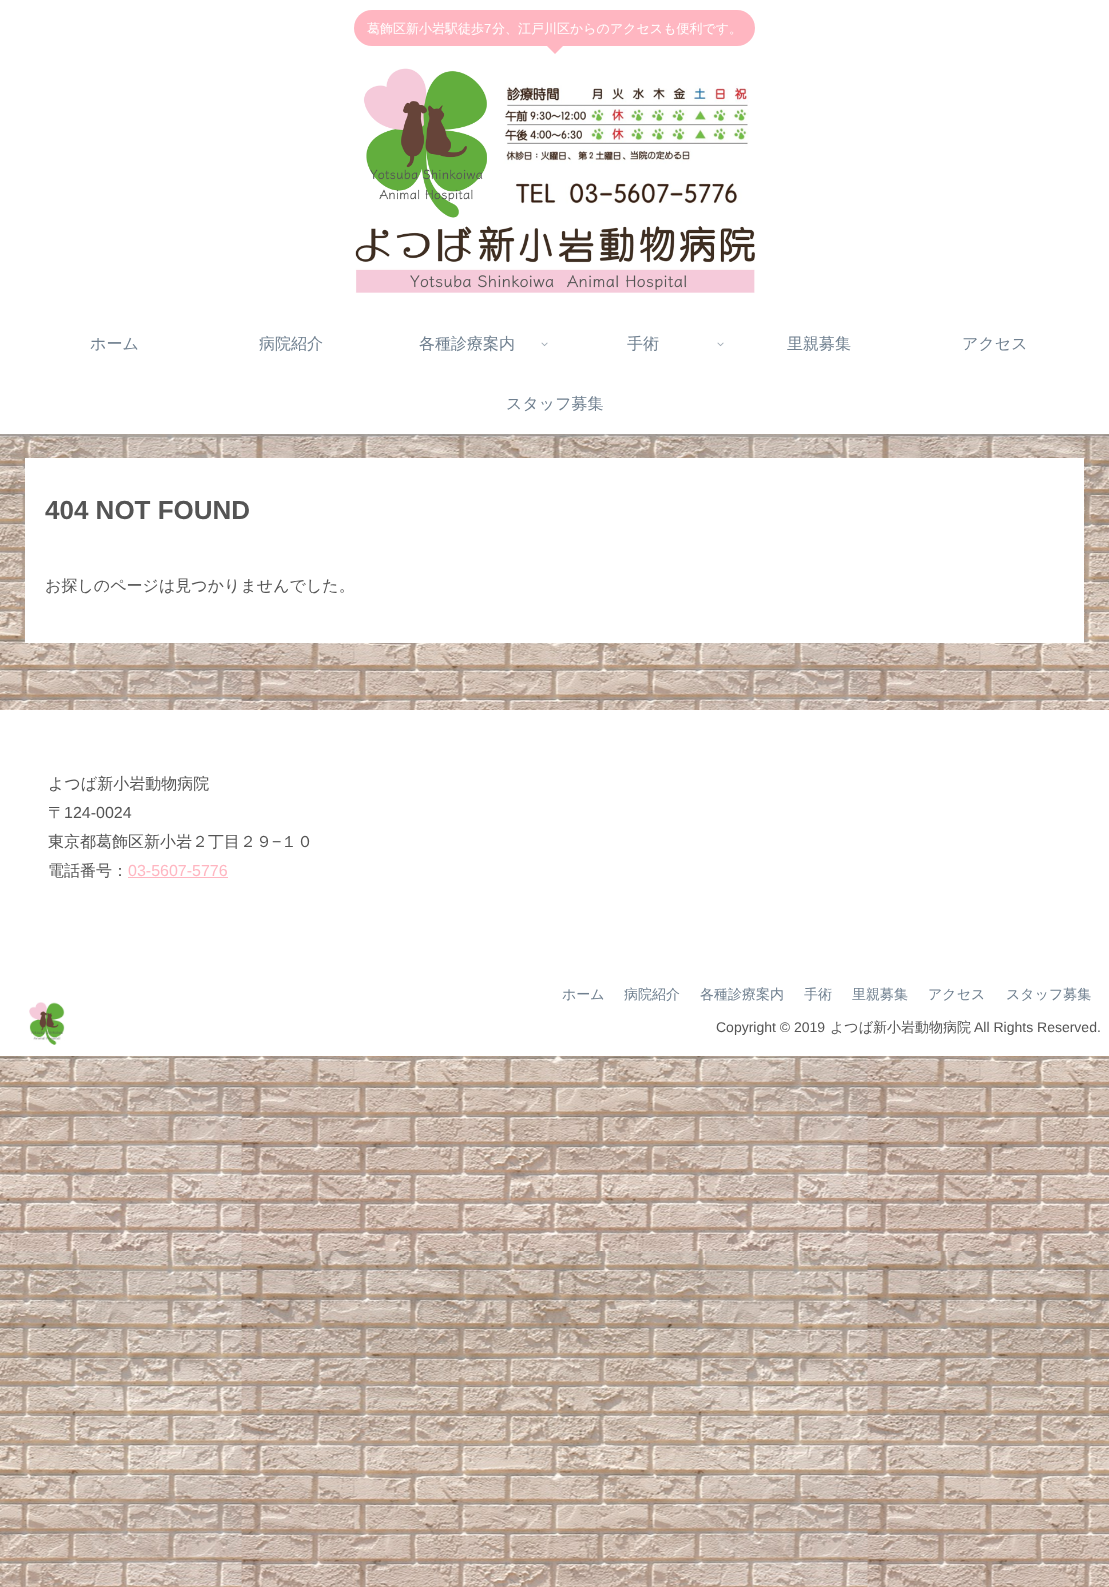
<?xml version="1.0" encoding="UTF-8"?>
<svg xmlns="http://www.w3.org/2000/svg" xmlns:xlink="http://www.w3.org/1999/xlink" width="1109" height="1587">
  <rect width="100%" height="100%" fill="#ffffff" />
  <image x="0" y="434" width="1109" height="1153" xlink:href="image1.png" />
  <rect y="1" width="1109" height="434" fill="#a9a9a9" filter="blur(2.5px)" />
  <rect width="1109" height="434" fill="#ffffff" />
  <rect x="354" y="10" width="401" height="36" rx="18" fill="#ffb6c1" />
  <path d="M 540 39 h 30 l -15 15 z" fill="#ffb6c1" />
  <image x="355" y="68" width="400" height="225" xlink:href="image2.png" />
  <image x="541" y="342" width="7" height="5" xlink:href="image3.png" />
  <image x="717" y="342" width="7" height="5" xlink:href="image3.png" />
  <rect x="25" y="458" width="1059" height="185" fill="#ffffff" />
  <rect y="710" width="1109" height="346" fill="#ffffff" />
  <rect x="128" y="877" width="100" height="1" fill="#ffb6c1" />
  <image x="29" y="1002" width="36" height="43" xlink:href="image4.png" />
  <text x="367" y="33" style="font-family: WenQuanYi Zen Hei; font-size: 13px; font-weight: 500; fill: #ffffff">葛飾区新小岩駅徒歩</text>
  <text x="484" y="33" style="font-family: Liberation Sans; font-size: 13px; fill: #ffffff">7</text>
  <text x="492" y="33" style="font-family: WenQuanYi Zen Hei; font-size: 13px; font-weight: 500; fill: #ffffff">分、江戸川区からのアクセスも便利です。</text>
  <text x="90" y="349" style="font-family: WenQuanYi Zen Hei; font-size: 16px; font-weight: 500; fill: #708090">ホーム</text>
  <text x="259" y="349" style="font-family: WenQuanYi Zen Hei; font-size: 16px; font-weight: 500; fill: #708090">病院紹介</text>
  <text x="419" y="349" style="font-family: WenQuanYi Zen Hei; font-size: 16px; font-weight: 500; fill: #708090">各種診療案内</text>
  <text x="627" y="349" style="font-family: WenQuanYi Zen Hei; font-size: 16px; font-weight: 500; fill: #708090">手術</text>
  <text x="787" y="349" style="font-family: WenQuanYi Zen Hei; font-size: 16px; font-weight: 500; fill: #708090">里親募集</text>
  <text x="962" y="349" style="font-family: WenQuanYi Zen Hei; font-size: 16px; font-weight: 500; fill: #708090">アクセス</text>
  <text x="506" y="409" style="font-family: WenQuanYi Zen Hei; font-size: 16px; font-weight: 500; fill: #708090">スタッフ募集</text>
  <text x="45" y="519" style="font-family: Liberation Sans; font-size: 26px; font-weight: bold; fill: #545454">404 NOT FOUND</text>
  <text x="45" y="591" style="font-family: WenQuanYi Zen Hei; font-size: 16px; font-weight: 500; fill: #545454">お探しのページは見つかりませんでした。</text>
  <text x="48" y="789" style="font-family: WenQuanYi Zen Hei; font-size: 16px; font-weight: 500; fill: #545454">よつば新小岩動物病院</text>
  <text x="48" y="818" style="font-family: WenQuanYi Zen Hei; font-size: 16px; font-weight: 500; fill: #545454">〒</text>
  <text x="64" y="818" style="font-family: Liberation Sans; font-size: 16px; fill: #545454">124-0024</text>
  <text x="48" y="847" style="font-family: WenQuanYi Zen Hei; font-size: 16px; font-weight: 500; fill: #545454">東京都葛飾区新小岩２丁目２９</text>
  <text x="272" y="847" style="font-family: Liberation Sans; font-size: 16px; fill: #545454">−</text>
  <text x="281" y="847" style="font-family: WenQuanYi Zen Hei; font-size: 16px; font-weight: 500; fill: #545454">１０</text>
  <text x="48" y="876" style="font-family: WenQuanYi Zen Hei; font-size: 16px; font-weight: 500; fill: #545454">電話番号：</text>
  <text x="128" y="876" style="font-family: Liberation Sans; font-size: 16px; fill: #ffb6c1">03-5607-5776</text>
  <text x="562" y="999" style="font-family: WenQuanYi Zen Hei; font-size: 14px; font-weight: 500; fill: #708090">ホーム</text>
  <text x="624" y="999" style="font-family: WenQuanYi Zen Hei; font-size: 14px; font-weight: 500; fill: #708090">病院紹介</text>
  <text x="700" y="999" style="font-family: WenQuanYi Zen Hei; font-size: 14px; font-weight: 500; fill: #708090">各種診療案内</text>
  <text x="804" y="999" style="font-family: WenQuanYi Zen Hei; font-size: 14px; font-weight: 500; fill: #708090">手術</text>
  <text x="852" y="999" style="font-family: WenQuanYi Zen Hei; font-size: 14px; font-weight: 500; fill: #708090">里親募集</text>
  <text x="928" y="999" style="font-family: WenQuanYi Zen Hei; font-size: 14px; font-weight: 500; fill: #708090">アクセス</text>
  <text x="1006" y="999" style="font-family: WenQuanYi Zen Hei; font-size: 14px; font-weight: 500; fill: #708090">スタッフ募集</text>
  <text x="716" y="1032" style="font-family: Liberation Sans; font-size: 14px; fill: #545454">Copyright © 2019</text>
  <text x="830" y="1032" style="font-family: WenQuanYi Zen Hei; font-size: 14px; font-weight: 500; fill: #545454">よつば新小岩動物病院</text>
  <text x="974" y="1032" style="font-family: Liberation Sans; font-size: 14px; fill: #545454">All Rights Reserved.</text>
</svg>
